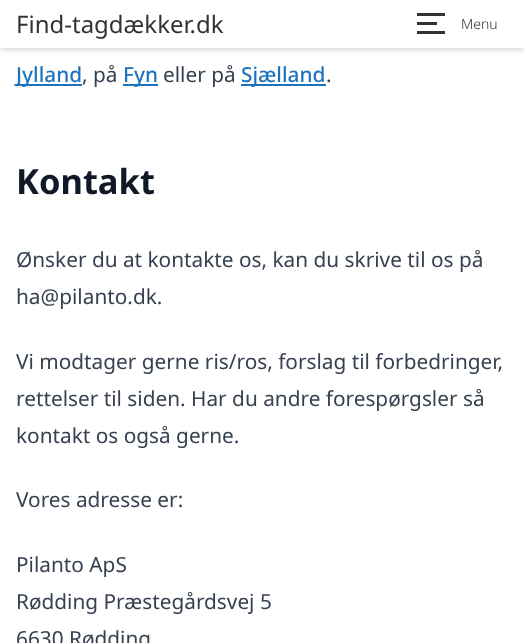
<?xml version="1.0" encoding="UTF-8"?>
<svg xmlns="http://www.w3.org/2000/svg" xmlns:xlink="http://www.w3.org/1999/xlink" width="525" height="643">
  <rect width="100%" height="100%" fill="#ffffff" />
  <rect x="1" y="3" width="523" height="46" fill="#000000" fill-opacity="0.06" filter="blur(2px)" />
  <rect x="1" y="5" width="523" height="46" fill="#000000" fill-opacity="0.1" filter="blur(3px)" />
  <rect width="525" height="48" fill="#ffffff" />
  <rect x="417" y="13" width="28" height="3" fill="#333333" />
  <rect x="417" y="22" width="20" height="3" fill="#333333" />
  <rect x="417" y="31" width="28" height="3" fill="#333333" />
  <rect x="16" y="84" width="66" height="2" fill="#1e73be" />
  <rect x="123" y="84" width="35" height="2" fill="#1e73be" />
  <rect x="241" y="84" width="85" height="2" fill="#1e73be" />
  <text x="16" y="33" style="font-family: Noto Sans; font-size: 24px; fill: #333333">Find-tagdækker.dk</text>
  <text x="461" y="29" style="font-family: Noto Sans; font-size: 14px; font-weight: 300; fill: #333333">Menu</text>
  <text x="16" y="82" style="font-family: Noto Sans; font-size: 20.8px; font-weight: 500; fill: #1e73be">Jylland</text>
  <text x="82" y="82" style="font-family: Noto Sans; font-size: 20.8px; fill: #374151">, på</text>
  <text x="123" y="82" style="font-family: Noto Sans; font-size: 20.8px; font-weight: 500; fill: #1e73be">Fyn</text>
  <text x="163" y="82" style="font-family: Noto Sans; font-size: 20.8px; fill: #374151">eller på</text>
  <text x="241" y="82" style="font-family: Noto Sans; font-size: 20.8px; font-weight: 500; fill: #1e73be">Sjælland</text>
  <text x="326" y="82" style="font-family: Noto Sans; font-size: 20.8px; fill: #374151">.</text>
  <text x="16" y="194" style="font-family: Noto Sans; font-size: 34.5px; font-weight: bold; fill: #111827">Kontakt</text>
  <text x="16" y="267" style="font-family: Noto Sans; font-size: 20.8px; fill: #374151">Ønsker du at kontakte os, kan du skrive til os på</text>
  <text x="16" y="304" style="font-family: Noto Sans; font-size: 20.8px; fill: #374151">ha@pilanto.dk.</text>
  <text x="16" y="369" style="font-family: Noto Sans; font-size: 20.8px; fill: #374151">Vi modtager gerne ris/ros, forslag til forbedringer,</text>
  <text x="16" y="406" style="font-family: Noto Sans; font-size: 20.8px; fill: #374151">rettelser til siden. Har du andre forespørgsler så</text>
  <text x="16" y="443" style="font-family: Noto Sans; font-size: 20.8px; fill: #374151">kontakt os også gerne.</text>
  <text x="16" y="507" style="font-family: Noto Sans; font-size: 20.8px; fill: #374151">Vores adresse er:</text>
  <text x="16" y="572" style="font-family: Noto Sans; font-size: 20.8px; fill: #374151">Pilanto ApS</text>
  <text x="16" y="609" style="font-family: Noto Sans; font-size: 20.8px; fill: #374151">Rødding Præstegårdsvej 5</text>
  <text x="16" y="646" style="font-family: Noto Sans; font-size: 20.8px; fill: #374151">6630 Rødding</text>
</svg>
